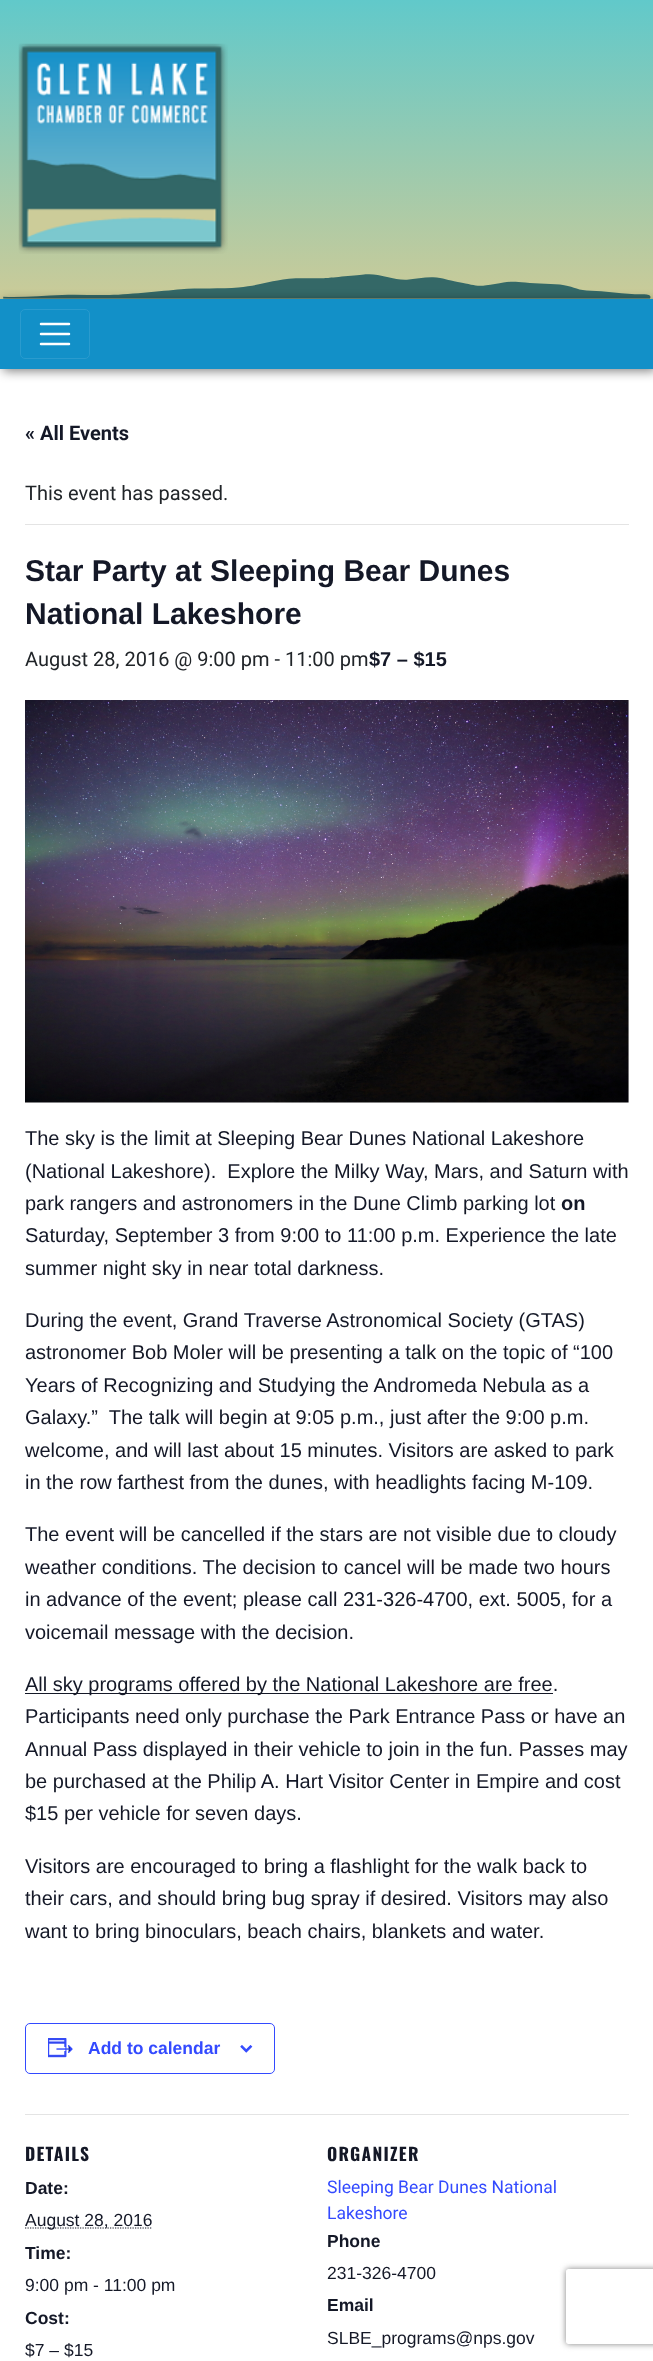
<?xml version="1.0" encoding="UTF-8"?>
<svg xmlns="http://www.w3.org/2000/svg" xmlns:xlink="http://www.w3.org/1999/xlink" width="653" height="2361">
  <defs>
    <linearGradient id="g1" gradientUnits="userSpaceOnUse" x1="327" y1="0" x2="327" y2="299"><stop offset="0" stop-color="#61c9ca" /><stop offset="1" stop-color="#cbcb98" /></linearGradient>
    <clipPath id="clip1"><path d="M 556 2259 h 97 v 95 h -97 z m 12.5 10 h 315 c 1.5 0 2.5 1 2.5 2.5 v 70 c 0 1.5 -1 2.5 -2.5 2.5 h -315 c -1.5 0 -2.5 -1 -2.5 -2.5 v -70 c 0 -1.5 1 -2.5 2.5 -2.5 z" clip-rule="evenodd" /></clipPath>
  </defs>
  <rect width="100%" height="100%" fill="#ffffff" />
  <rect width="653" height="299" fill="url(#g1)" />
  <image x="3" y="274" width="648" height="25" xlink:href="image1.png" />
  <image x="18" y="43" width="210" height="211" xlink:href="image2.png" />
  <rect x="3" y="301" width="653" height="70" fill="#000000" fill-opacity="0.5" filter="blur(5.5px)" />
  <rect y="299" width="653" height="70" fill="#1290c8" />
  <rect x="20.5" y="309.5" width="69" height="49" rx="4.5" fill="none" stroke="#2a9bce" />
  <path d="M 41 324 h 28 m -28 10 h 28 m -28 10 h 28" fill="none" stroke="#ffffff" stroke-width="2.5" stroke-linecap="round" />
  <rect x="25" y="524" width="604" height="1" fill="#e4e4e4" />
  <image x="25" y="700" width="604" height="403" xlink:href="image3.png" />
  <rect x="25" y="1693" width="528" height="1" fill="#141827" />
  <rect x="25.5" y="2023.5" width="249" height="50" rx="4.5" fill="none" stroke="#334aff" />
  <image x="48" y="2038" width="25" height="20" xlink:href="image4.png" />
  <image x="240" y="2045" width="13" height="8" xlink:href="image5.png" />
  <rect x="25" y="2114" width="604" height="1" fill="#e4e4e4" />
  <path d="M 25 2228 h 127.5" fill="none" stroke="#141827" stroke-width="1.2" stroke-dasharray="1.25 1.25" />
  <g clip-path="url(#clip1)">
    <rect x="566" y="2269" width="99" height="75" rx="2.5" fill="#808080" filter="blur(3px)" />
  </g>
  <text x="25" y="440" style="font-family: Roboto; font-size: 20px; font-weight: bold; fill: #141827">« All Events</text>
  <text x="25" y="500" style="font-family: Roboto; font-size: 20px; fill: #212529">This event has passed.</text>
  <text x="25" y="581" style="font-family: Liberation Sans; font-size: 30px; font-weight: bold; fill: #141827">Star Party at Sleeping Bear Dunes</text>
  <text x="25" y="624" style="font-family: Liberation Sans; font-size: 30px; font-weight: bold; fill: #141827">National Lakeshore</text>
  <text x="25" y="666" style="font-family: Roboto; font-size: 20px; fill: #212529">August 28, 2016 @ 9:00 pm - 11:00 pm</text>
  <text x="369" y="666" style="font-family: Liberation Sans; font-size: 20px; font-weight: bold; fill: #141827">$7 – $15</text>
  <text x="25" y="1145" style="font-family: Liberation Sans; font-size: 20px; fill: #141827">The sky is the limit at Sleeping Bear Dunes National Lakeshore</text>
  <text x="25" y="1178" style="font-family: Liberation Sans; font-size: 20px; fill: #141827" xml:space="preserve">(National Lakeshore).  Explore the Milky Way, Mars, and Saturn with</text>
  <text x="25" y="1210" style="font-family: Liberation Sans; font-size: 20px; fill: #141827">park rangers and astronomers in the Dune Climb parking lot</text>
  <text x="561" y="1210" style="font-family: Liberation Sans; font-size: 20px; font-weight: bold; fill: #141827">on</text>
  <text x="25" y="1242" style="font-family: Liberation Sans; font-size: 20px; fill: #141827">Saturday, September 3 from 9:00 to 11:00 p.m. Experience the late</text>
  <text x="25" y="1275" style="font-family: Liberation Sans; font-size: 20px; fill: #141827">summer night sky in near total darkness.</text>
  <text x="25" y="1327" style="font-family: Liberation Sans; font-size: 20px; fill: #141827">During the event, Grand Traverse Astronomical Society (GTAS)</text>
  <text x="25" y="1359" style="font-family: Liberation Sans; font-size: 20px; fill: #141827">astronomer Bob Moler will be presenting a talk on the topic of “100</text>
  <text x="25" y="1392" style="font-family: Liberation Sans; font-size: 20px; fill: #141827">Years of Recognizing and Studying the Andromeda Nebula as a</text>
  <text x="25" y="1424" style="font-family: Liberation Sans; font-size: 20px; fill: #141827" xml:space="preserve">Galaxy.”  The talk will begin at 9:05 p.m., just after the 9:00 p.m.</text>
  <text x="25" y="1457" style="font-family: Liberation Sans; font-size: 20px; fill: #141827">welcome, and will last about 15 minutes. Visitors are asked to park</text>
  <text x="25" y="1489" style="font-family: Liberation Sans; font-size: 20px; fill: #141827">in the row farthest from the dunes, with headlights facing M-109.</text>
  <text x="25" y="1541" style="font-family: Liberation Sans; font-size: 20px; fill: #141827">The event will be cancelled if the stars are not visible due to cloudy</text>
  <text x="25" y="1574" style="font-family: Liberation Sans; font-size: 20px; fill: #141827">weather conditions. The decision to cancel will be made two hours</text>
  <text x="25" y="1606" style="font-family: Liberation Sans; font-size: 20px; fill: #141827">in advance of the event; please call 231-326-4700, ext. 5005, for a</text>
  <text x="25" y="1639" style="font-family: Liberation Sans; font-size: 20px; fill: #141827">voicemail message with the decision.</text>
  <text x="25" y="1691" style="font-family: Liberation Sans; font-size: 20px; fill: #141827">All sky programs offered by the National Lakeshore are free.</text>
  <text x="25" y="1723" style="font-family: Liberation Sans; font-size: 20px; fill: #141827">Participants need only purchase the Park Entrance Pass or have an</text>
  <text x="25" y="1756" style="font-family: Liberation Sans; font-size: 20px; fill: #141827">Annual Pass displayed in their vehicle to join in the fun. Passes may</text>
  <text x="25" y="1788" style="font-family: Liberation Sans; font-size: 20px; fill: #141827">be purchased at the Philip A. Hart Visitor Center in Empire and cost</text>
  <text x="25" y="1820" style="font-family: Liberation Sans; font-size: 20px; fill: #141827">$15 per vehicle for seven days.</text>
  <text x="25" y="1873" style="font-family: Liberation Sans; font-size: 20px; fill: #141827">Visitors are encouraged to bring a flashlight for the walk back to</text>
  <text x="25" y="1905" style="font-family: Liberation Sans; font-size: 20px; fill: #141827">their cars, and should bring bug spray if desired. Visitors may also</text>
  <text x="25" y="1938" style="font-family: Liberation Sans; font-size: 20px; fill: #141827">want to bring binoculars, beach chairs, blankets and water.</text>
  <text x="88" y="2054" style="font-family: Liberation Sans; font-size: 17.5px; font-weight: bold; fill: #334aff">Add to calendar</text>
  <text x="25" y="2161" style="font-family: Oswald; font-size: 17.5px; font-weight: bold; letter-spacing: 1.25px; fill: #141827">DETAILS</text>
  <text x="25" y="2194" style="font-family: Liberation Sans; font-size: 17.5px; font-weight: bold; fill: #141827">Date:</text>
  <text x="25" y="2226" style="font-family: Liberation Sans; font-size: 17.5px; fill: #141827">August 28, 2016</text>
  <text x="25" y="2259" style="font-family: Liberation Sans; font-size: 17.5px; font-weight: bold; fill: #141827">Time:</text>
  <text x="25" y="2291" style="font-family: Liberation Sans; font-size: 17.5px; fill: #141827">9:00 pm - 11:00 pm</text>
  <text x="25" y="2324" style="font-family: Liberation Sans; font-size: 17.5px; font-weight: bold; fill: #141827">Cost:</text>
  <text x="25" y="2356" style="font-family: Liberation Sans; font-size: 17.5px; fill: #141827">$7 – $15</text>
  <text x="327" y="2161" style="font-family: Oswald; font-size: 17.5px; font-weight: bold; letter-spacing: 1.25px; fill: #141827">ORGANIZER</text>
  <text x="327" y="2193" style="font-family: Roboto; font-size: 17.5px; fill: #334aff">Sleeping Bear Dunes National</text>
  <text x="327" y="2219" style="font-family: Roboto; font-size: 17.5px; fill: #334aff">Lakeshore</text>
  <text x="327" y="2247" style="font-family: Liberation Sans; font-size: 17.5px; font-weight: bold; fill: #141827">Phone</text>
  <text x="327" y="2279" style="font-family: Liberation Sans; font-size: 17.5px; fill: #141827">231-326-4700</text>
  <text x="327" y="2311" style="font-family: Liberation Sans; font-size: 17.5px; font-weight: bold; fill: #141827">Email</text>
  <text x="327" y="2344" style="font-family: Liberation Sans; font-size: 17.5px; fill: #141827">SLBE_programs@nps.gov</text>
</svg>
